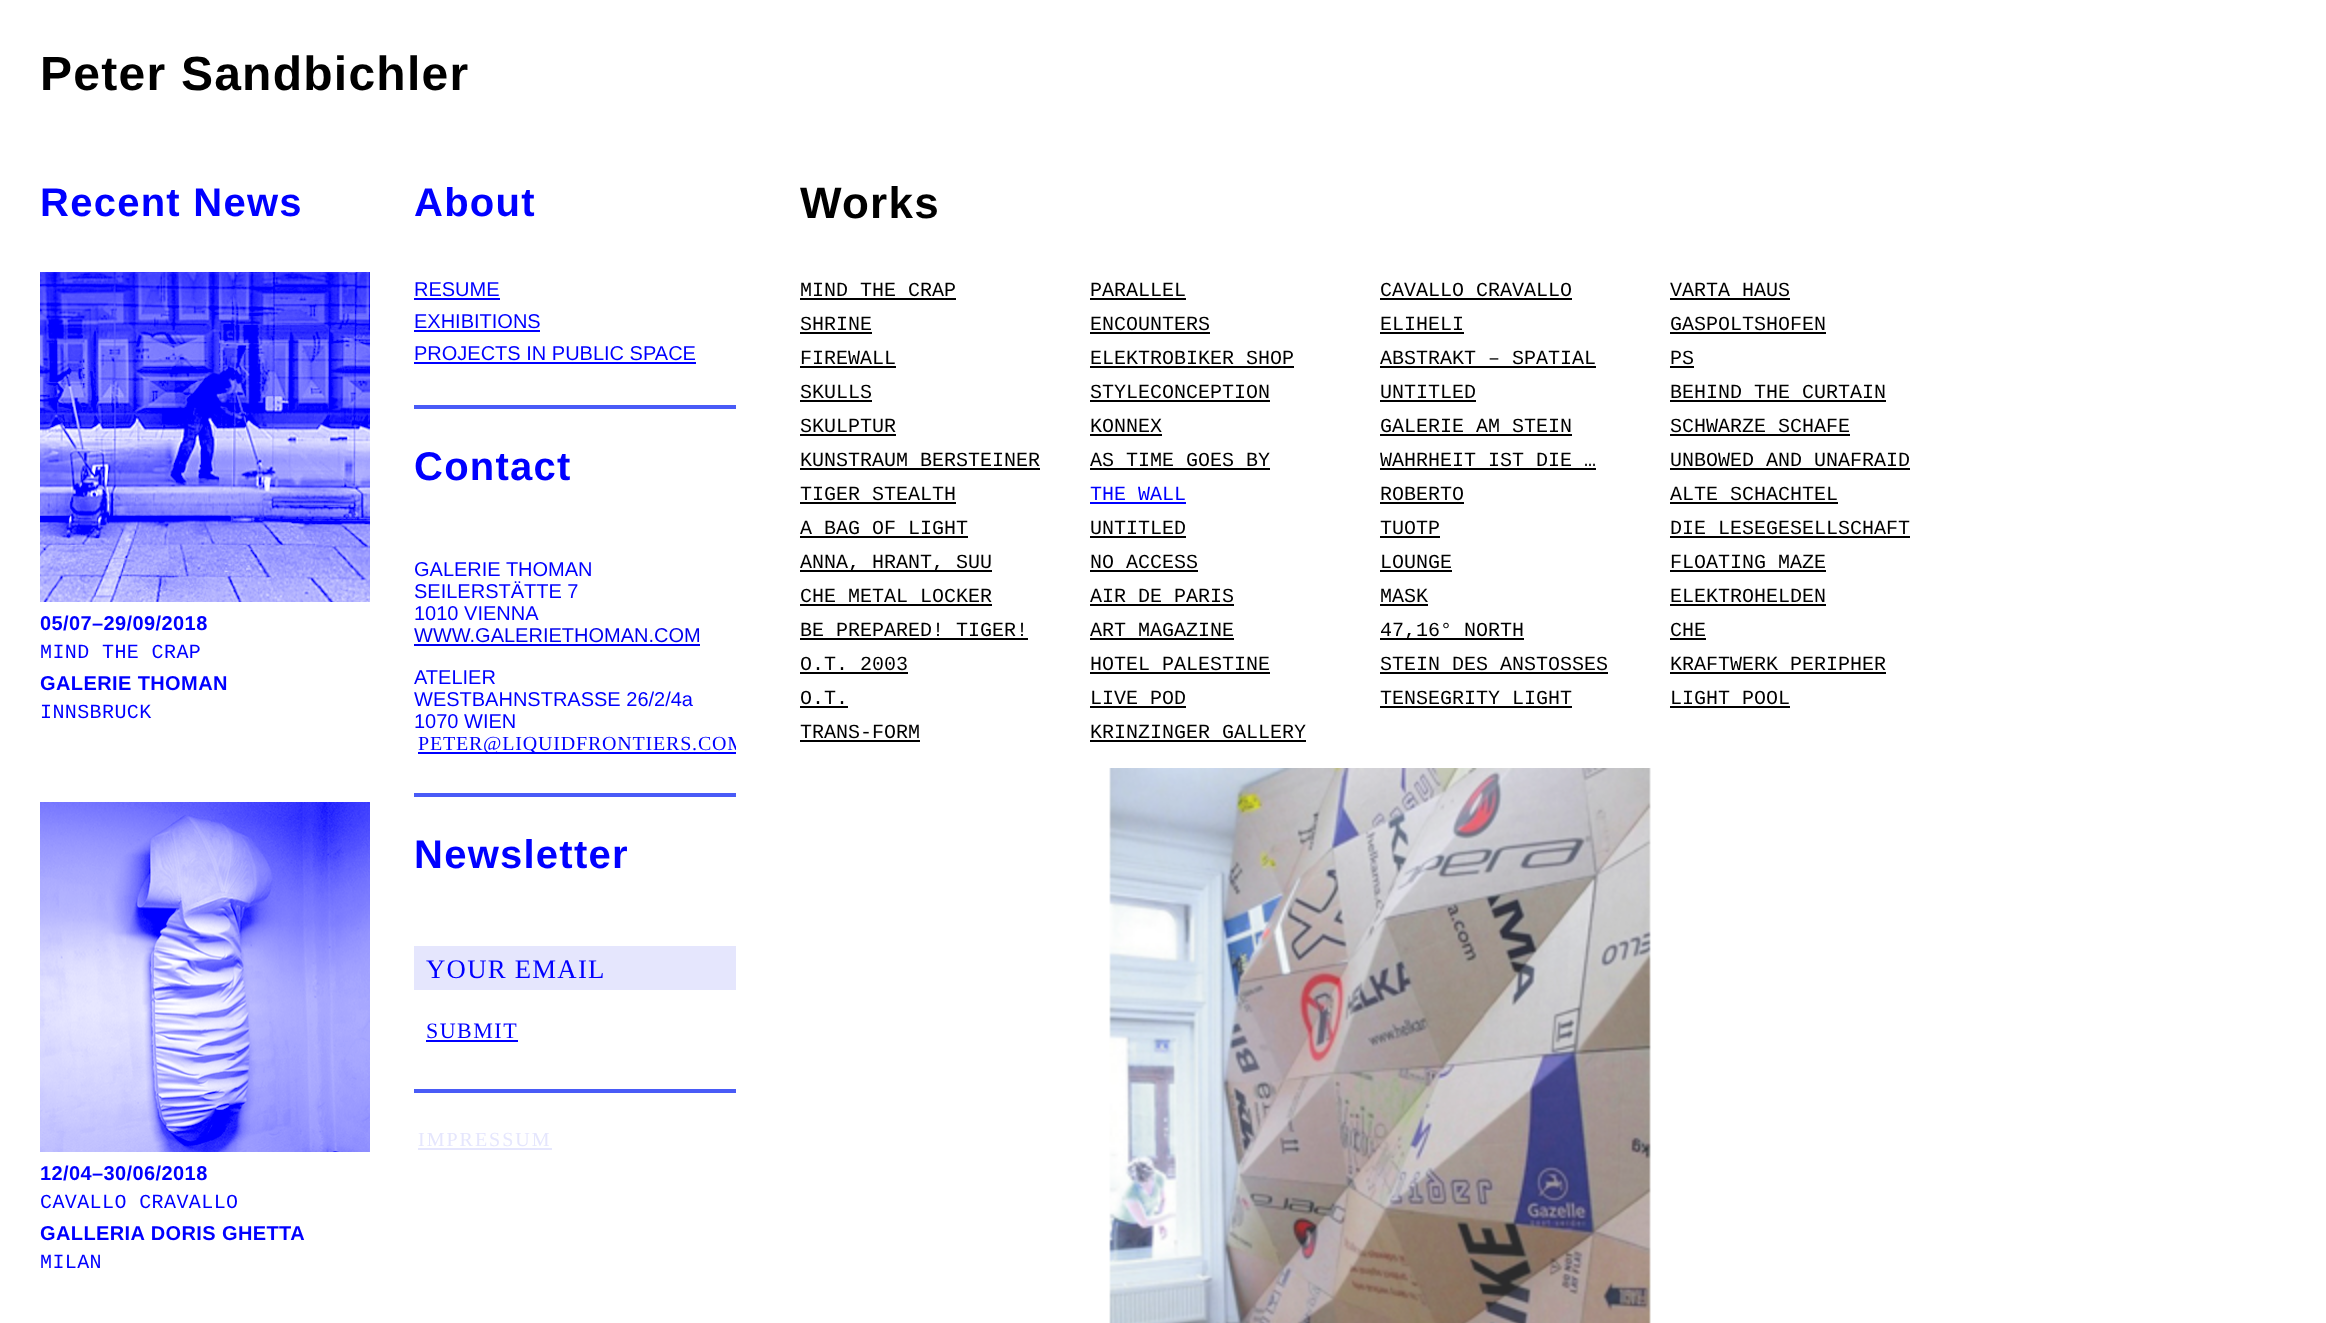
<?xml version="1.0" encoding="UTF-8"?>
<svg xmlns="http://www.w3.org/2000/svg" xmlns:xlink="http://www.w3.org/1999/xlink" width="2326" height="1323">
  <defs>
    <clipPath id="clip1"><rect x="414" y="164" width="322" height="986" /></clipPath>
  </defs>
  <rect width="100%" height="100%" fill="#ffffff" />
  <image x="40" y="272" width="330" height="330" xlink:href="image1.png" />
  <image x="40" y="802" width="330" height="350" xlink:href="image2.png" />
  <rect x="414" y="298" width="86" height="2" fill="#0000ff" />
  <rect x="414" y="330" width="126" height="2" fill="#0000ff" />
  <rect x="414" y="362" width="282" height="2" fill="#0000ff" />
  <rect x="414" y="405" width="322" height="4" fill="#495bf7" />
  <rect x="414" y="644" width="286" height="2" fill="#0000ee" />
  <rect x="418" y="752" width="318" height="2" fill="#0000ff" />
  <rect x="414" y="793" width="322" height="4" fill="#495bf7" />
  <rect x="414" y="946" width="322" height="44" fill="#e5e6fd" />
  <rect x="426" y="1040" width="92" height="2" fill="#0000ff" />
  <rect x="414" y="1089" width="322" height="4" fill="#495bf7" />
  <rect x="418" y="1148" width="134" height="2" fill="#e5e6fd" />
  <rect x="800" y="298" width="156" height="2" fill="#000000" />
  <rect x="1090" y="298" width="96" height="2" fill="#000000" />
  <rect x="1380" y="298" width="192" height="2" fill="#000000" />
  <rect x="1670" y="298" width="120" height="2" fill="#000000" />
  <rect x="800" y="332" width="72" height="2" fill="#000000" />
  <rect x="1090" y="332" width="120" height="2" fill="#000000" />
  <rect x="1380" y="332" width="84" height="2" fill="#000000" />
  <rect x="1670" y="332" width="156" height="2" fill="#000000" />
  <rect x="800" y="366" width="96" height="2" fill="#000000" />
  <rect x="1090" y="366" width="204" height="2" fill="#000000" />
  <rect x="1380" y="366" width="216" height="2" fill="#000000" />
  <rect x="1670" y="366" width="24" height="2" fill="#000000" />
  <rect x="800" y="400" width="72" height="2" fill="#000000" />
  <rect x="1090" y="400" width="180" height="2" fill="#000000" />
  <rect x="1380" y="400" width="96" height="2" fill="#000000" />
  <rect x="1670" y="400" width="216" height="2" fill="#000000" />
  <rect x="800" y="434" width="96" height="2" fill="#000000" />
  <rect x="1090" y="434" width="72" height="2" fill="#000000" />
  <rect x="1380" y="434" width="192" height="2" fill="#000000" />
  <rect x="1670" y="434" width="180" height="2" fill="#000000" />
  <rect x="800" y="468" width="240" height="2" fill="#000000" />
  <rect x="1090" y="468" width="180" height="2" fill="#000000" />
  <rect x="1380" y="468" width="216" height="2" fill="#000000" />
  <rect x="1670" y="468" width="240" height="2" fill="#000000" />
  <rect x="800" y="502" width="156" height="2" fill="#000000" />
  <rect x="1090" y="502" width="96" height="2" fill="#0000ff" />
  <rect x="1380" y="502" width="84" height="2" fill="#000000" />
  <rect x="1670" y="502" width="168" height="2" fill="#000000" />
  <rect x="800" y="536" width="168" height="2" fill="#000000" />
  <rect x="1090" y="536" width="96" height="2" fill="#000000" />
  <rect x="1380" y="536" width="60" height="2" fill="#000000" />
  <rect x="1670" y="536" width="240" height="2" fill="#000000" />
  <rect x="800" y="570" width="192" height="2" fill="#000000" />
  <rect x="1090" y="570" width="108" height="2" fill="#000000" />
  <rect x="1380" y="570" width="72" height="2" fill="#000000" />
  <rect x="1670" y="570" width="156" height="2" fill="#000000" />
  <rect x="800" y="604" width="192" height="2" fill="#000000" />
  <rect x="1090" y="604" width="144" height="2" fill="#000000" />
  <rect x="1380" y="604" width="48" height="2" fill="#000000" />
  <rect x="1670" y="604" width="156" height="2" fill="#000000" />
  <rect x="800" y="638" width="228" height="2" fill="#000000" />
  <rect x="1090" y="638" width="144" height="2" fill="#000000" />
  <rect x="1380" y="638" width="144" height="2" fill="#000000" />
  <rect x="1670" y="638" width="36" height="2" fill="#000000" />
  <rect x="800" y="672" width="108" height="2" fill="#000000" />
  <rect x="1090" y="672" width="180" height="2" fill="#000000" />
  <rect x="1380" y="672" width="228" height="2" fill="#000000" />
  <rect x="1670" y="672" width="216" height="2" fill="#000000" />
  <rect x="800" y="706" width="48" height="2" fill="#000000" />
  <rect x="1090" y="706" width="96" height="2" fill="#000000" />
  <rect x="1380" y="706" width="192" height="2" fill="#000000" />
  <rect x="1670" y="706" width="120" height="2" fill="#000000" />
  <rect x="800" y="740" width="120" height="2" fill="#000000" />
  <rect x="1090" y="740" width="216" height="2" fill="#000000" />
  <image x="1109" y="768" width="542" height="555" xlink:href="image3.png" />
  <text x="40" y="90" style="font-family: Liberation Sans; font-size: 48px; font-weight: bold; letter-spacing: 1.25px; fill: #000000">Peter Sandbichler</text>
  <text x="40" y="216" style="font-family: Liberation Sans; font-size: 40px; font-weight: bold; letter-spacing: 1.25px; fill: #0000ff">Recent News</text>
  <text x="40" y="630" style="font-family: Liberation Sans; font-size: 20px; font-weight: bold; letter-spacing: 0.4px; fill: #0000ff">05/07–29/09/2018</text>
  <text x="40" y="658" style="font-family: Liberation Mono; font-size: 20px; letter-spacing: 0.4px; fill: #0000ff">MIND THE CRAP</text>
  <text x="40" y="690" style="font-family: Liberation Sans; font-size: 20px; font-weight: bold; letter-spacing: 0.4px; fill: #0000ff">GALERIE THOMAN</text>
  <text x="40" y="718" style="font-family: Liberation Mono; font-size: 20px; letter-spacing: 0.4px; fill: #0000ff">INNSBRUCK</text>
  <text x="40" y="1180" style="font-family: Liberation Sans; font-size: 20px; font-weight: bold; letter-spacing: 0.4px; fill: #0000ff">12/04–30/06/2018</text>
  <text x="40" y="1208" style="font-family: Liberation Mono; font-size: 20px; letter-spacing: 0.4px; fill: #0000ff">CAVALLO CRAVALLO</text>
  <text x="40" y="1240" style="font-family: Liberation Sans; font-size: 20px; font-weight: bold; letter-spacing: 0.4px; fill: #0000ff">GALLERIA DORIS GHETTA</text>
  <text x="40" y="1268" style="font-family: Liberation Mono; font-size: 20px; letter-spacing: 0.4px; fill: #0000ff">MILAN</text>
  <text x="414" y="216" style="font-family: Liberation Sans; font-size: 40px; font-weight: bold; letter-spacing: 1.25px; fill: #0000ff">About</text>
  <text x="414" y="296" style="font-family: Liberation Sans; font-size: 20px; fill: #0000ff">RESUME</text>
  <text x="414" y="328" style="font-family: Liberation Sans; font-size: 20px; fill: #0000ff">EXHIBITIONS</text>
  <text x="414" y="360" style="font-family: Liberation Sans; font-size: 20px; fill: #0000ff">PROJECTS IN PUBLIC SPACE</text>
  <text x="414" y="480" style="font-family: Liberation Sans; font-size: 40px; font-weight: bold; letter-spacing: 1.25px; fill: #0000ff">Contact</text>
  <text x="414" y="576" style="font-family: Liberation Sans; font-size: 20px; fill: #0000ff">GALERIE THOMAN</text>
  <text x="414" y="598" style="font-family: Liberation Sans; font-size: 20px; fill: #0000ff">SEILERSTÄTTE 7</text>
  <text x="414" y="620" style="font-family: Liberation Sans; font-size: 20px; fill: #0000ff">1010 VIENNA</text>
  <text x="414" y="642" style="font-family: Liberation Sans; font-size: 20px; fill: #0000ee">WWW.GALERIETHOMAN.COM</text>
  <text x="414" y="684" style="font-family: Liberation Sans; font-size: 20px; fill: #0000ff">ATELIER</text>
  <text x="414" y="706" style="font-family: Liberation Sans; font-size: 20px; fill: #0000ff">WESTBAHNSTRASSE 26/2/4a</text>
  <text x="414" y="728" style="font-family: Liberation Sans; font-size: 20px; fill: #0000ff">1070 WIEN</text>
  <g clip-path="url(#clip1)">
    <text x="418" y="750" style="font-family: Liberation Serif; font-size: 20px; letter-spacing: 0.8px; fill: #0000ff">PETER@LIQUIDFRONTIERS.COM</text>
  </g>
  <text x="414" y="868" style="font-family: Liberation Sans; font-size: 40px; font-weight: bold; letter-spacing: 1.25px; fill: #0000ff">Newsletter</text>
  <text x="426" y="978" style="font-family: Liberation Serif; font-size: 26.75px; letter-spacing: 1.25px; fill: #0000ff">YOUR EMAIL</text>
  <text x="426" y="1038" style="font-family: Liberation Serif; font-size: 22px; letter-spacing: 1.5px; fill: #0000ff">SUBMIT</text>
  <text x="418" y="1146" style="font-family: Liberation Serif; font-size: 20px; letter-spacing: 2px; fill: #e5e6fd">IMPRESSUM</text>
  <text x="800" y="218" style="font-family: Liberation Sans; font-size: 44px; font-weight: bold; letter-spacing: 1.25px; fill: #000000">Works</text>
  <text x="800" y="296" style="font-family: Liberation Mono; font-size: 20px; fill: #000000">MIND THE CRAP</text>
  <text x="1090" y="296" style="font-family: Liberation Mono; font-size: 20px; fill: #000000">PARALLEL</text>
  <text x="1380" y="296" style="font-family: Liberation Mono; font-size: 20px; fill: #000000">CAVALLO CRAVALLO</text>
  <text x="1670" y="296" style="font-family: Liberation Mono; font-size: 20px; fill: #000000">VARTA HAUS</text>
  <text x="800" y="330" style="font-family: Liberation Mono; font-size: 20px; fill: #000000">SHRINE</text>
  <text x="1090" y="330" style="font-family: Liberation Mono; font-size: 20px; fill: #000000">ENCOUNTERS</text>
  <text x="1380" y="330" style="font-family: Liberation Mono; font-size: 20px; fill: #000000">ELIHELI</text>
  <text x="1670" y="330" style="font-family: Liberation Mono; font-size: 20px; fill: #000000">GASPOLTSHOFEN</text>
  <text x="800" y="364" style="font-family: Liberation Mono; font-size: 20px; fill: #000000">FIREWALL</text>
  <text x="1090" y="364" style="font-family: Liberation Mono; font-size: 20px; fill: #000000">ELEKTROBIKER SHOP</text>
  <text x="1380" y="364" style="font-family: Liberation Mono; font-size: 20px; fill: #000000">ABSTRAKT – SPATIAL</text>
  <text x="1670" y="364" style="font-family: Liberation Mono; font-size: 20px; fill: #000000">PS</text>
  <text x="800" y="398" style="font-family: Liberation Mono; font-size: 20px; fill: #000000">SKULLS</text>
  <text x="1090" y="398" style="font-family: Liberation Mono; font-size: 20px; fill: #000000">STYLECONCEPTION</text>
  <text x="1380" y="398" style="font-family: Liberation Mono; font-size: 20px; fill: #000000">UNTITLED</text>
  <text x="1670" y="398" style="font-family: Liberation Mono; font-size: 20px; fill: #000000">BEHIND THE CURTAIN</text>
  <text x="800" y="432" style="font-family: Liberation Mono; font-size: 20px; fill: #000000">SKULPTUR</text>
  <text x="1090" y="432" style="font-family: Liberation Mono; font-size: 20px; fill: #000000">KONNEX</text>
  <text x="1380" y="432" style="font-family: Liberation Mono; font-size: 20px; fill: #000000">GALERIE AM STEIN</text>
  <text x="1670" y="432" style="font-family: Liberation Mono; font-size: 20px; fill: #000000">SCHWARZE SCHAFE</text>
  <text x="800" y="466" style="font-family: Liberation Mono; font-size: 20px; fill: #000000">KUNSTRAUM BERSTEINER</text>
  <text x="1090" y="466" style="font-family: Liberation Mono; font-size: 20px; fill: #000000">AS TIME GOES BY</text>
  <text x="1380" y="466" style="font-family: Liberation Mono; font-size: 20px; fill: #000000">WAHRHEIT IST DIE …</text>
  <text x="1670" y="466" style="font-family: Liberation Mono; font-size: 20px; fill: #000000">UNBOWED AND UNAFRAID</text>
  <text x="800" y="500" style="font-family: Liberation Mono; font-size: 20px; fill: #000000">TIGER STEALTH</text>
  <text x="1090" y="500" style="font-family: Liberation Mono; font-size: 20px; fill: #0000ff">THE WALL</text>
  <text x="1380" y="500" style="font-family: Liberation Mono; font-size: 20px; fill: #000000">ROBERTO</text>
  <text x="1670" y="500" style="font-family: Liberation Mono; font-size: 20px; fill: #000000">ALTE SCHACHTEL</text>
  <text x="800" y="534" style="font-family: Liberation Mono; font-size: 20px; fill: #000000">A BAG OF LIGHT</text>
  <text x="1090" y="534" style="font-family: Liberation Mono; font-size: 20px; fill: #000000">UNTITLED</text>
  <text x="1380" y="534" style="font-family: Liberation Mono; font-size: 20px; fill: #000000">TUOTP</text>
  <text x="1670" y="534" style="font-family: Liberation Mono; font-size: 20px; fill: #000000">DIE LESEGESELLSCHAFT</text>
  <text x="800" y="568" style="font-family: Liberation Mono; font-size: 20px; fill: #000000">ANNA, HRANT, SUU</text>
  <text x="1090" y="568" style="font-family: Liberation Mono; font-size: 20px; fill: #000000">NO ACCESS</text>
  <text x="1380" y="568" style="font-family: Liberation Mono; font-size: 20px; fill: #000000">LOUNGE</text>
  <text x="1670" y="568" style="font-family: Liberation Mono; font-size: 20px; fill: #000000">FLOATING MAZE</text>
  <text x="800" y="602" style="font-family: Liberation Mono; font-size: 20px; fill: #000000">CHE METAL LOCKER</text>
  <text x="1090" y="602" style="font-family: Liberation Mono; font-size: 20px; fill: #000000">AIR DE PARIS</text>
  <text x="1380" y="602" style="font-family: Liberation Mono; font-size: 20px; fill: #000000">MASK</text>
  <text x="1670" y="602" style="font-family: Liberation Mono; font-size: 20px; fill: #000000">ELEKTROHELDEN</text>
  <text x="800" y="636" style="font-family: Liberation Mono; font-size: 20px; fill: #000000">BE PREPARED! TIGER!</text>
  <text x="1090" y="636" style="font-family: Liberation Mono; font-size: 20px; fill: #000000">ART MAGAZINE</text>
  <text x="1380" y="636" style="font-family: Liberation Mono; font-size: 20px; fill: #000000">47,16° NORTH</text>
  <text x="1670" y="636" style="font-family: Liberation Mono; font-size: 20px; fill: #000000">CHE</text>
  <text x="800" y="670" style="font-family: Liberation Mono; font-size: 20px; fill: #000000">O.T. 2003</text>
  <text x="1090" y="670" style="font-family: Liberation Mono; font-size: 20px; fill: #000000">HOTEL PALESTINE</text>
  <text x="1380" y="670" style="font-family: Liberation Mono; font-size: 20px; fill: #000000">STEIN DES ANSTOSSES</text>
  <text x="1670" y="670" style="font-family: Liberation Mono; font-size: 20px; fill: #000000">KRAFTWERK PERIPHER</text>
  <text x="800" y="704" style="font-family: Liberation Mono; font-size: 20px; fill: #000000">O.T.</text>
  <text x="1090" y="704" style="font-family: Liberation Mono; font-size: 20px; fill: #000000">LIVE POD</text>
  <text x="1380" y="704" style="font-family: Liberation Mono; font-size: 20px; fill: #000000">TENSEGRITY LIGHT</text>
  <text x="1670" y="704" style="font-family: Liberation Mono; font-size: 20px; fill: #000000">LIGHT POOL</text>
  <text x="800" y="738" style="font-family: Liberation Mono; font-size: 20px; fill: #000000">TRANS-FORM</text>
  <text x="1090" y="738" style="font-family: Liberation Mono; font-size: 20px; fill: #000000">KRINZINGER GALLERY</text>
</svg>
